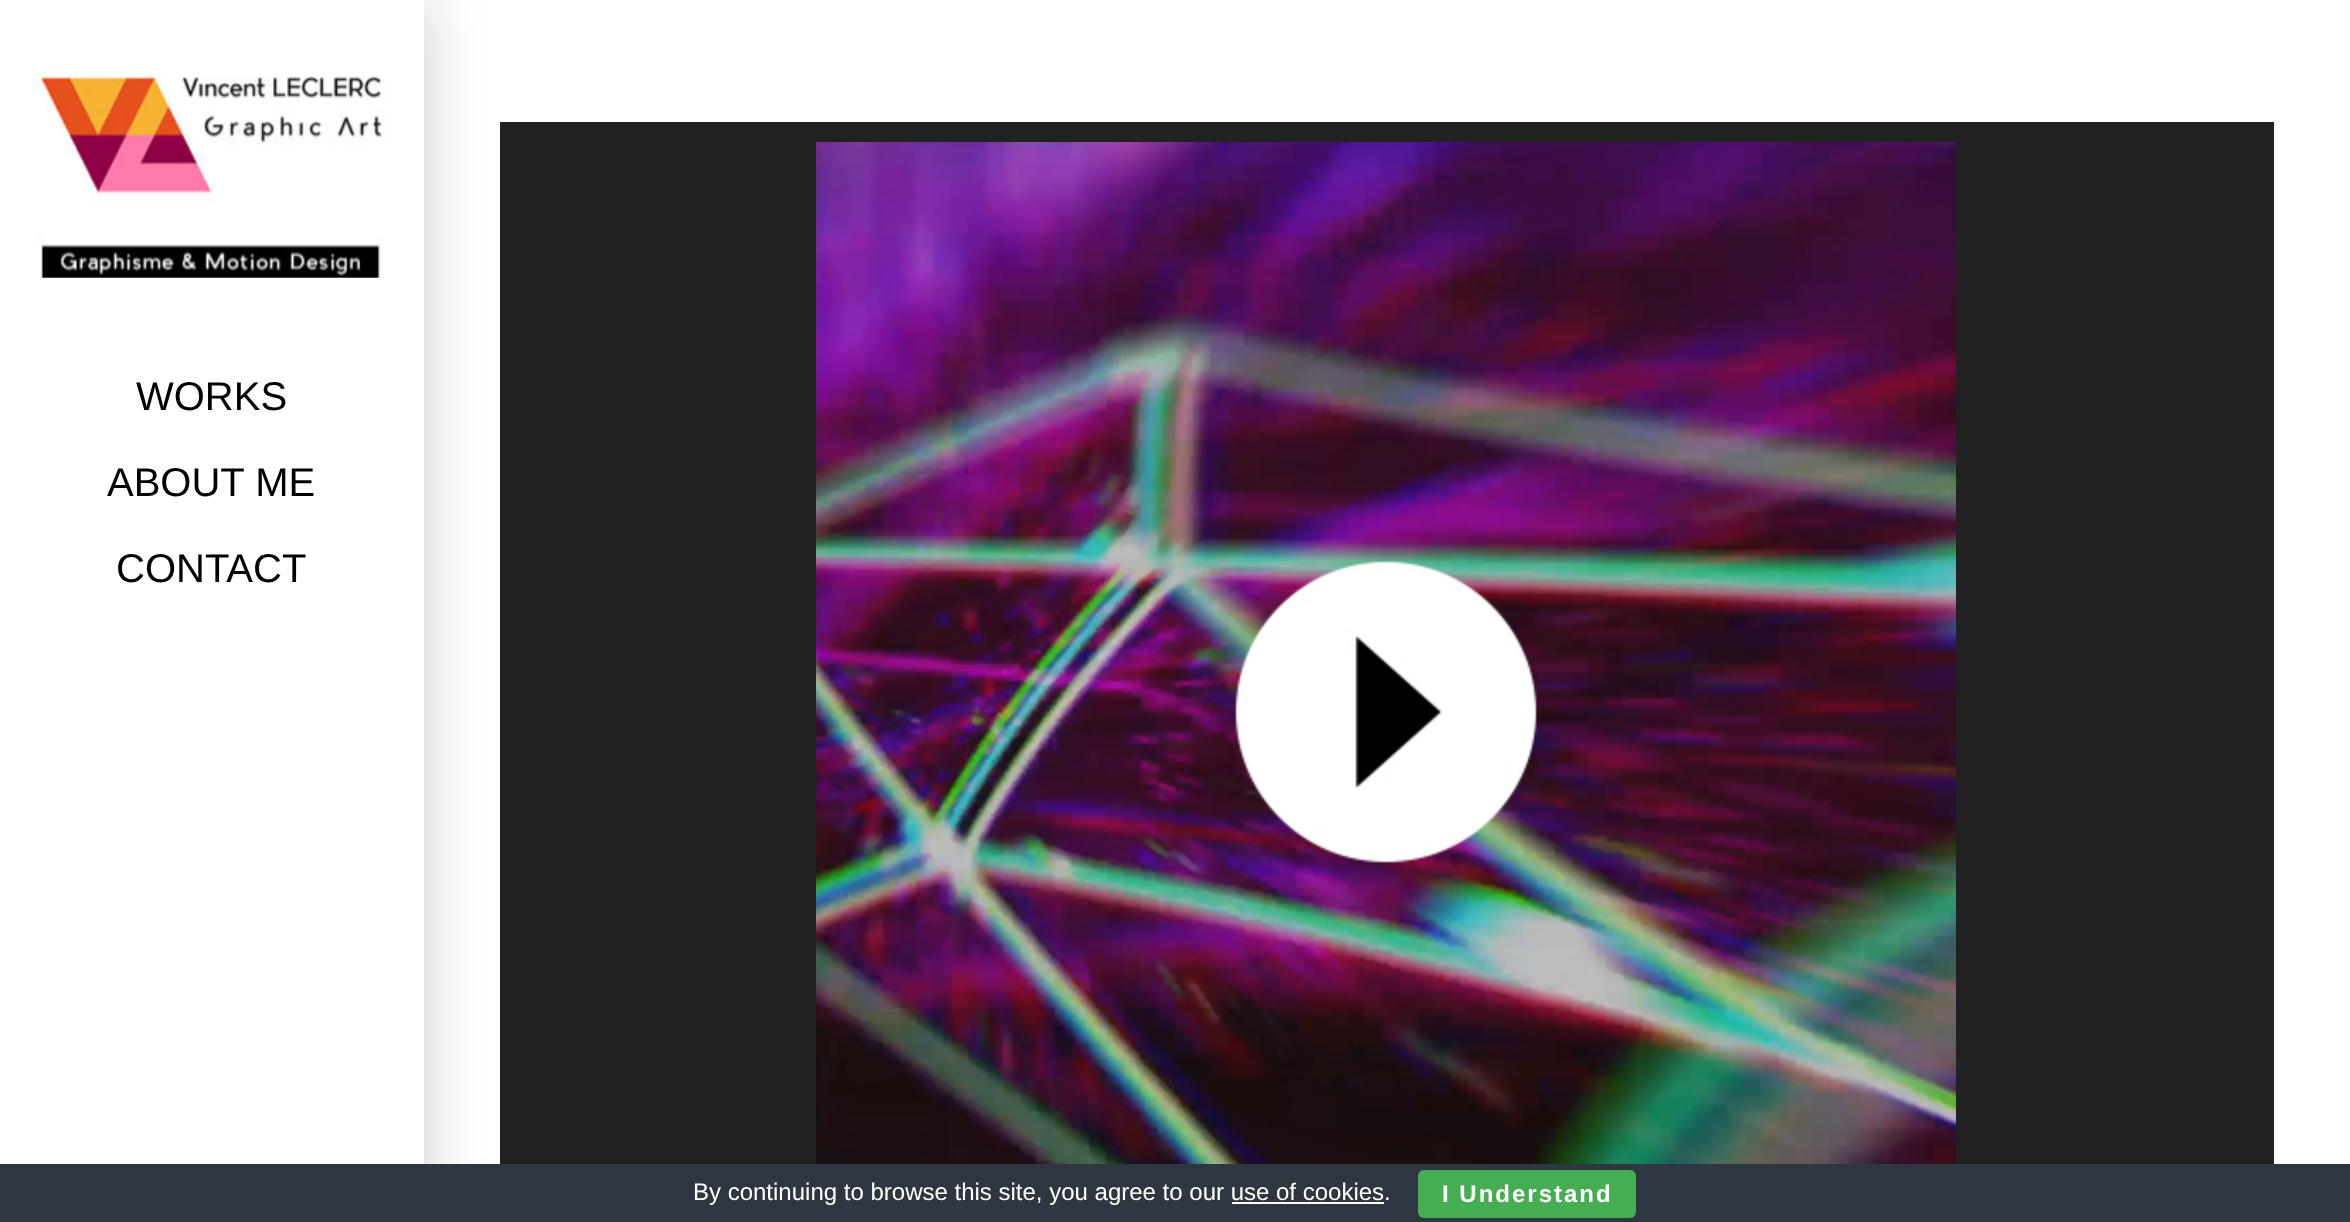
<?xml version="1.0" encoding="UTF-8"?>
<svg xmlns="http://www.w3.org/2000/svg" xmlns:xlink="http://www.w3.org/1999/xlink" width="2350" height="1222">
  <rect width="100%" height="100%" fill="#ffffff" />
  <rect x="500" y="122" width="1774" height="1042" fill="#212121" />
  <rect width="424" height="1222" fill="#000000" fill-opacity="0.2" filter="blur(30px)" />
  <rect width="424" height="1164" fill="#ffffff" />
  <image x="34" y="75" width="351" height="203" xlink:href="image1.png" />
  <image x="816" y="142" width="1140" height="1022" xlink:href="image2.png" />
  <rect y="1164" width="2350" height="58" fill="#2e363f" />
  <rect x="1418" y="1170" width="218" height="48" rx="6" fill="#45ae52" />
  <rect x="1232" y="1202" width="152" height="2" fill="#ffffff" />
  <text x="136" y="410" style="font-family: Liberation Sans; font-size: 40px; fill: #000000">WORKS</text>
  <text x="107" y="496" style="font-family: Liberation Sans; font-size: 40px; fill: #000000">ABOUT ME</text>
  <text x="116" y="582" style="font-family: Liberation Sans; font-size: 40px; fill: #000000">CONTACT</text>
  <text x="693" y="1200" style="font-family: Liberation Sans; font-size: 24px; fill: #ffffff">By continuing to browse this site, you agree to our use of cookies.</text>
  <text x="1442" y="1202" style="font-family: Liberation Sans; font-size: 24px; font-weight: bold; letter-spacing: 2px; fill: #ffffff">I Understand</text>
</svg>
